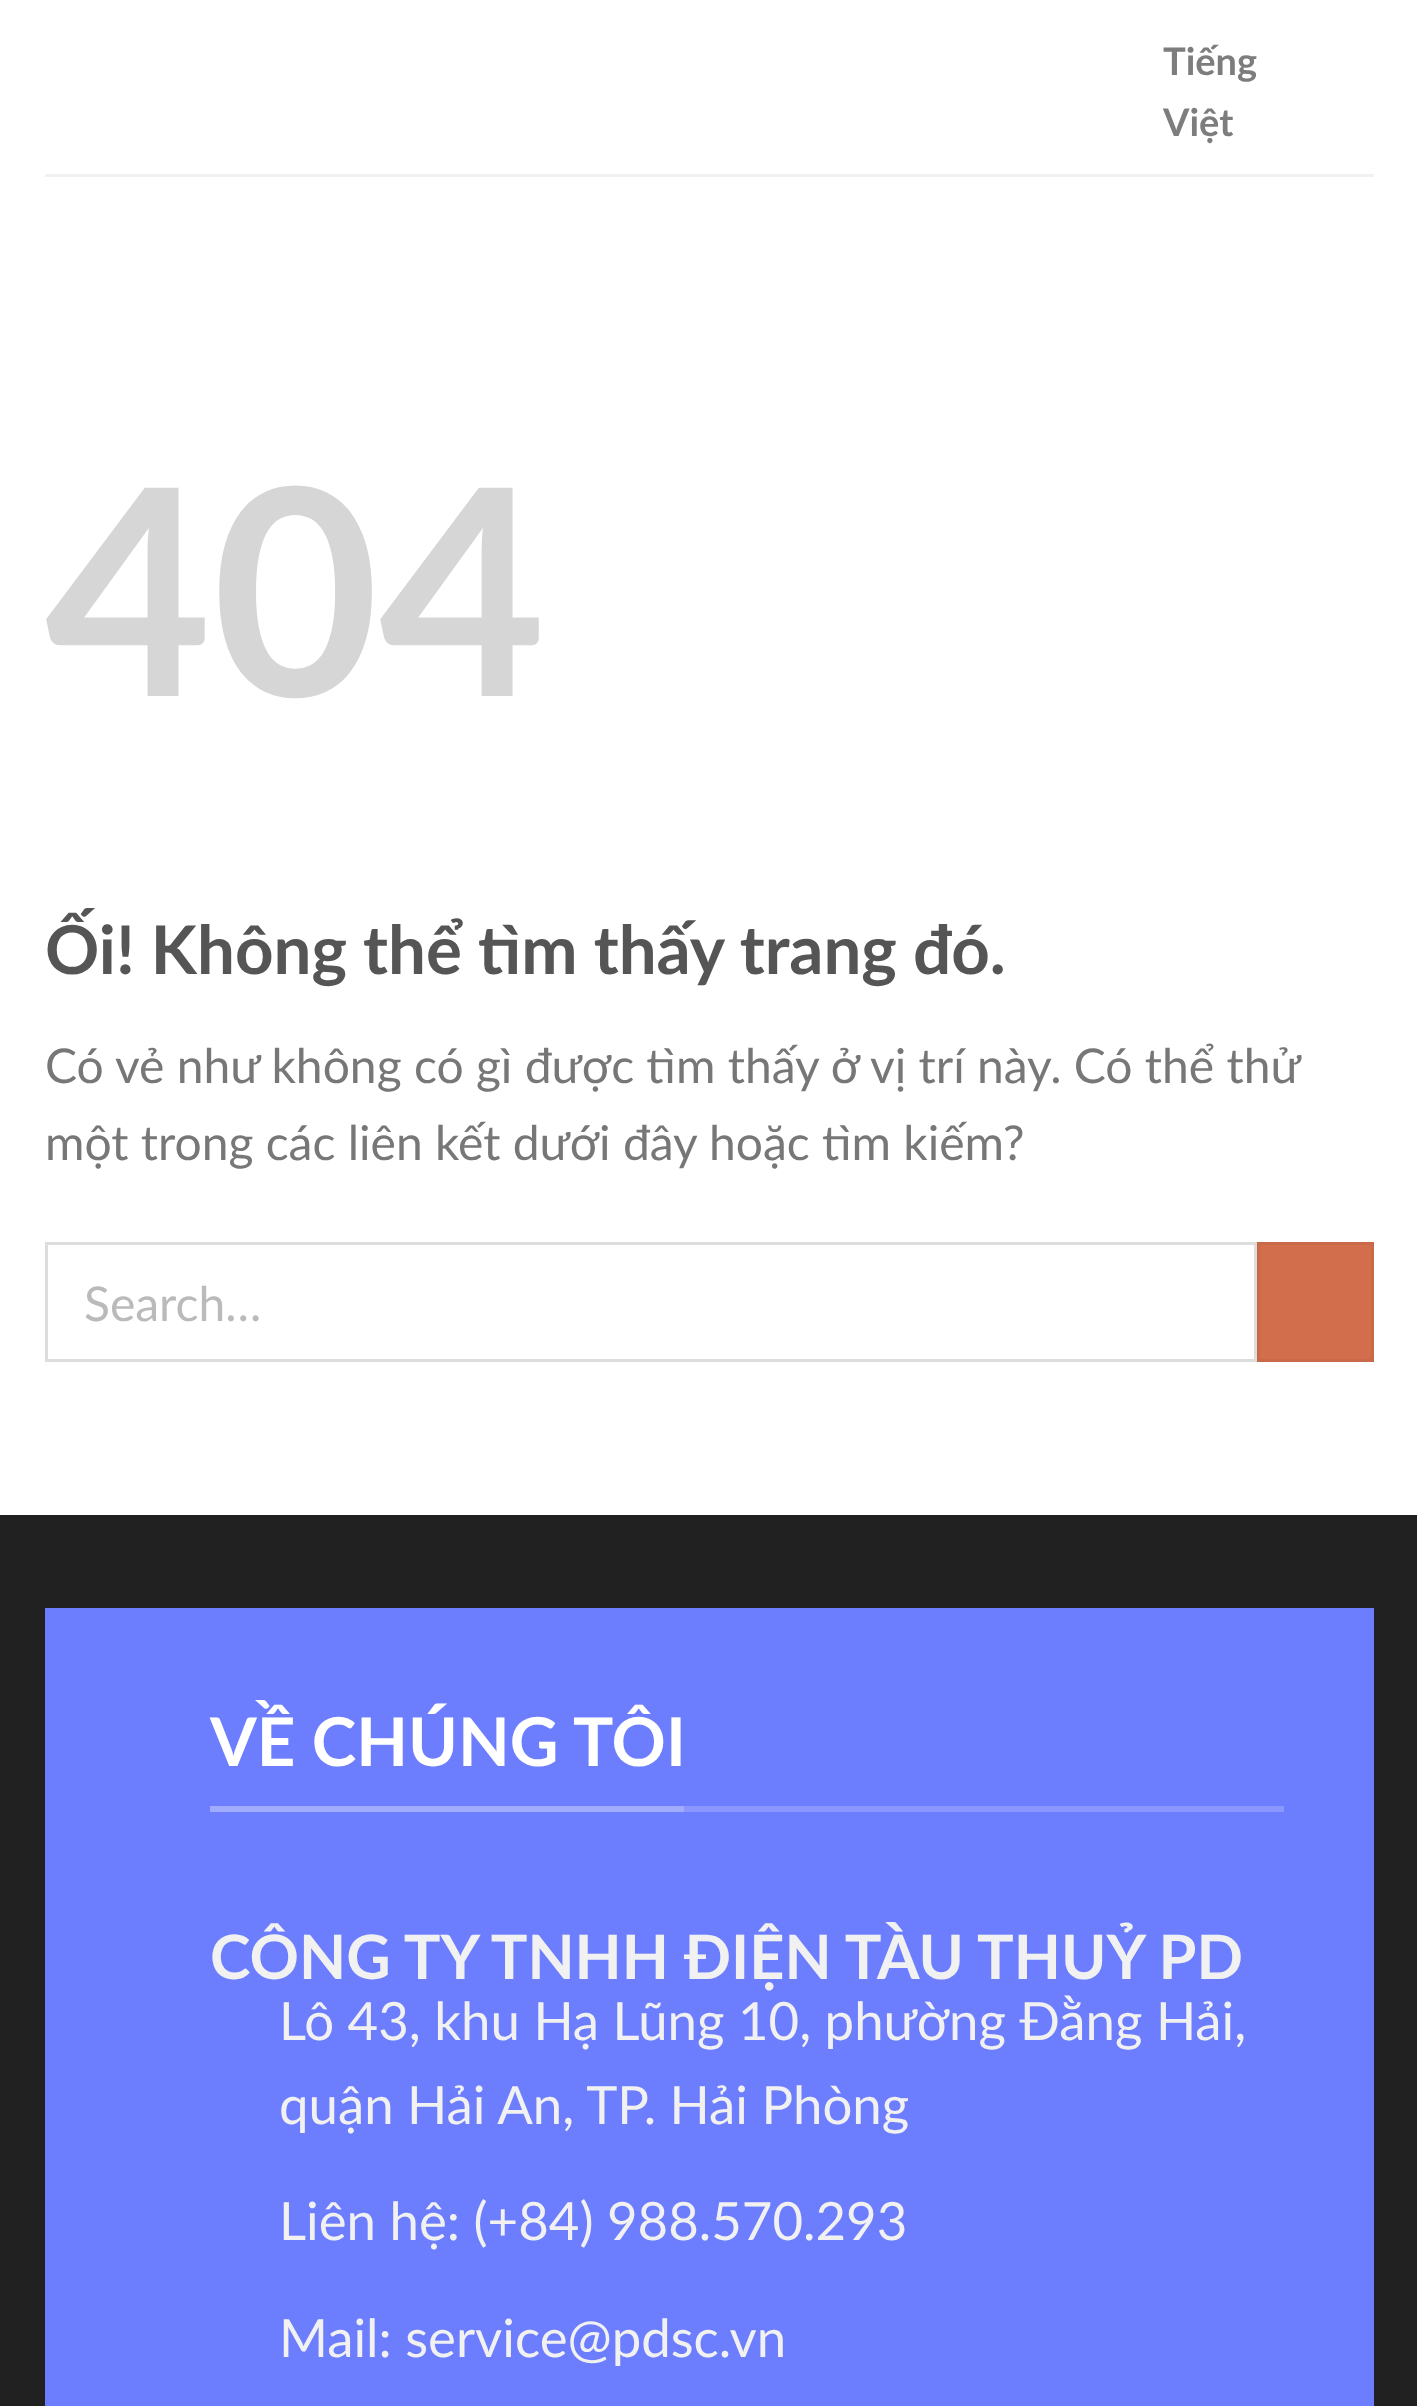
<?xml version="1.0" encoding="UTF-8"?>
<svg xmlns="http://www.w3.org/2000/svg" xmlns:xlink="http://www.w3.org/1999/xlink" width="1417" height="2406">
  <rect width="100%" height="100%" fill="#ffffff" />
  <rect x="45" y="174" width="1329" height="3" fill="#f1f1f1" />
  <rect x="46.5" y="1243.5" width="1209" height="117" fill="none" stroke="#dddddd" stroke-width="3" />
  <rect x="1258.5" y="1243.5" width="114" height="117" fill="#d26e4b" stroke="#c86947" stroke-width="3" />
  <rect y="1518" width="1417" height="888" fill="#212121" />
  <rect y="1515" width="1417" height="3" fill="#1f1f1f" />
  <rect x="45" y="1608" width="1329" height="798" fill="#6c7dfe" />
  <rect x="684" y="1806" width="600" height="6" fill="#8997fe" />
  <rect x="210" y="1806" width="474" height="6" fill="#a1acfe" />
  <text x="1163" y="75" style="font-family: Lato; font-size: 38px; font-weight: bold; fill: #7d7d7d">Tiếng</text>
  <text x="1163" y="136" style="font-family: Lato; font-size: 38px; font-weight: bold; fill: #7d7d7d">Việt</text>
  <text x="45" y="696" style="font-family: Lato; font-size: 288px; font-weight: bold; fill: #d6d6d6">404</text>
  <text x="45" y="974" word-spacing="-0.25" style="font-family: Lato; font-size: 67.25px; font-weight: bold; fill: #555555">Ối! Không thể tìm thấy trang đó.</text>
  <text x="45" y="1083" style="font-family: Lato; font-size: 48px; fill: #777777">Có vẻ như không có gì được tìm thấy ở vị trí này. Có thể thử</text>
  <text x="45" y="1160" style="font-family: Lato; font-size: 48px; fill: #777777">một trong các liên kết dưới đây hoặc tìm kiếm?</text>
  <text x="84" y="1321" style="font-family: Lato; font-size: 48px; fill: #bababa">Search…</text>
  <text x="210" y="1766" style="font-family: Lato; font-size: 67.25px; font-weight: bold; fill: #ffffff">VỀ CHÚNG TÔI</text>
  <text x="210" y="1979" style="font-family: Lato; font-size: 61.25px; font-weight: bold; fill: #f1f1f1">CÔNG TY TNHH ĐIỆN TÀU THUỶ PD</text>
  <text x="279" y="2040" style="font-family: Lato; font-size: 52.75px; fill: #f1f1f1">Lô 43, khu Hạ Lũng 10, phường Đằng Hải,</text>
  <text x="279" y="2124" style="font-family: Lato; font-size: 52.75px; fill: #f1f1f1">quận Hải An, TP. Hải Phòng</text>
  <text x="279" y="2240" style="font-family: Lato; font-size: 52.75px; fill: #f1f1f1">Liên hệ: (+84) 988.570.293</text>
  <text x="279" y="2357" style="font-family: Lato; font-size: 52.75px; fill: #f1f1f1">Mail: service@pdsc.vn</text>
</svg>
